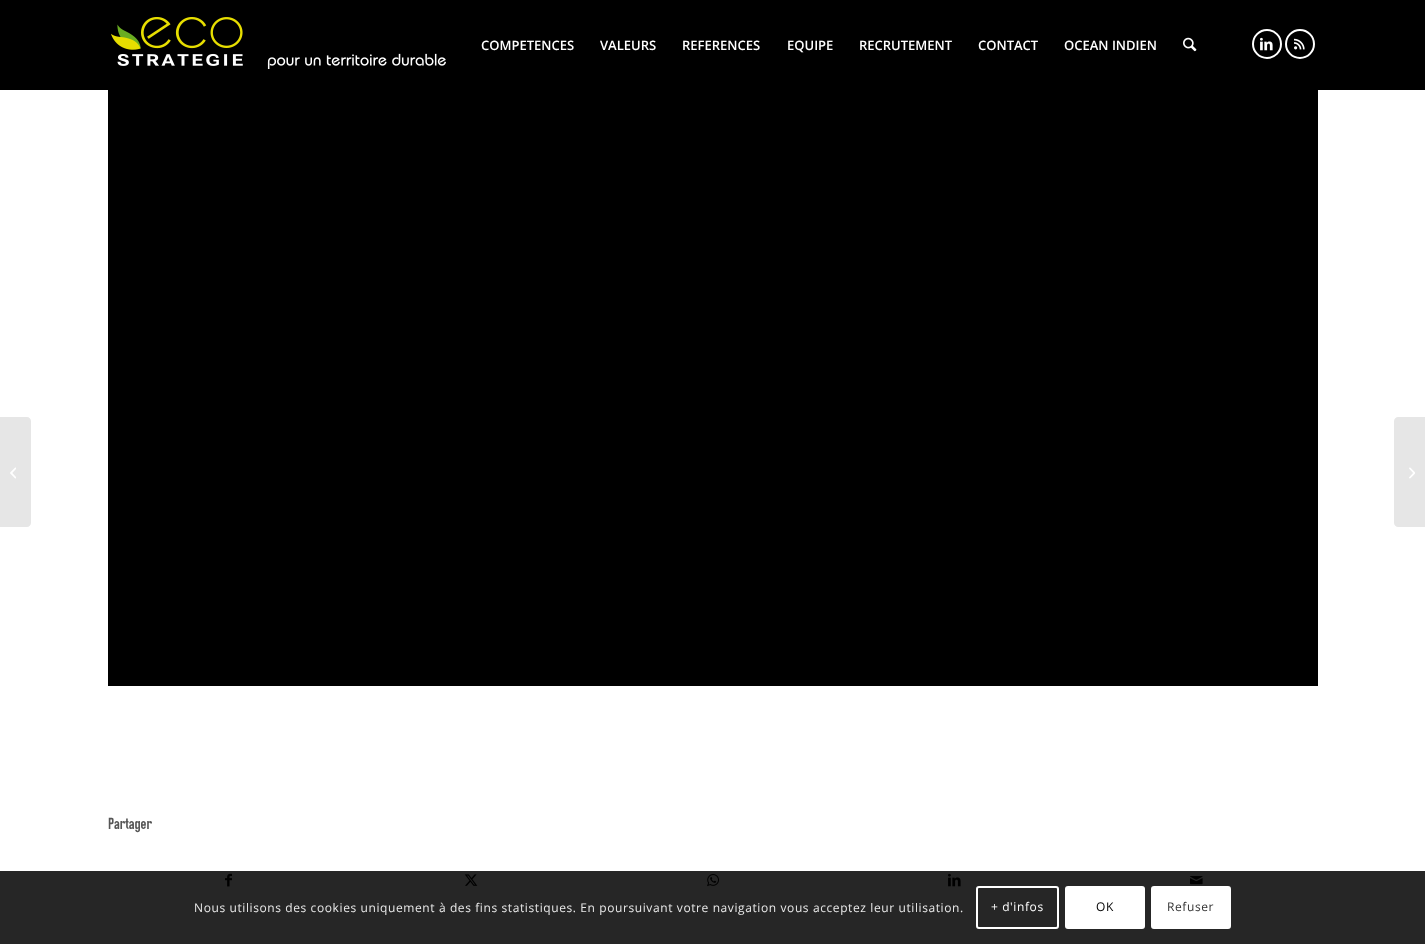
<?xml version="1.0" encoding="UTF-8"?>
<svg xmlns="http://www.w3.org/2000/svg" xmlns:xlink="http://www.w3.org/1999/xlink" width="1425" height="944">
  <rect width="100%" height="100%" fill="#ffffff" />
  <rect width="1425" height="90" fill="#000000" />
  <image x="111" y="17" width="335" height="52" xlink:href="image1.png" />
  <image x="1183" y="37" width="14" height="15" xlink:href="image2.png" />
  <circle cx="1267" cy="44" r="14" fill="none" stroke="#ffffff" stroke-width="2" />
  <image x="1260" y="37" width="13" height="14" xlink:href="image3.png" />
  <circle cx="1300" cy="44" r="14" fill="none" stroke="#ffffff" stroke-width="2" />
  <image x="1294" y="38" width="11" height="12" xlink:href="image4.png" />
  <path d="M 0 417 h 27 c 2 0 4 2 4 4 v 102 c 0 2 -2 4 -4 4 h -27 z" fill="#e6e6e6" />
  <image x="10" y="467" width="6" height="12" xlink:href="image5.png" />
  <path d="M 1398 417 h 27 v 110 h -27 c -2 0 -4 -2 -4 -4 v -102 c 0 -2 2 -4 4 -4 z" fill="#e6e6e6" />
  <image x="1409" y="467" width="6" height="12" xlink:href="image6.png" />
  <rect y="871" width="1425" height="73" fill="#262626" />
  <rect x="108" y="90" width="1210" height="596" fill="#000000" />
  <image x="225" y="873" width="7" height="14" xlink:href="image7.png" />
  <image x="464" y="874" width="14" height="12" xlink:href="image8.png" />
  <image x="707" y="874" width="12" height="13" xlink:href="image9.png" />
  <image x="948" y="873" width="13" height="14" xlink:href="image10.png" />
  <image x="1190" y="876" width="13" height="9" xlink:href="image11.png" />
  <rect x="977" y="887" width="81" height="41" rx="2" fill="none" stroke="#ffffff" stroke-width="2" />
  <rect x="1065" y="886" width="80" height="43" rx="3" fill="#ffffff" />
  <rect x="1152" y="887" width="78" height="41" rx="2" fill="#ffffff" stroke="#ffffff" stroke-width="2" />
  <text x="481" y="50" style="font-family: Open Sans; font-size: 13px; font-weight: 600; fill: #ffffff">COMPETENCES</text>
  <text x="600" y="50" style="font-family: Open Sans; font-size: 13px; font-weight: 600; fill: #ffffff">VALEURS</text>
  <text x="682" y="50" style="font-family: Open Sans; font-size: 13px; font-weight: 600; fill: #ffffff">REFERENCES</text>
  <text x="787" y="50" style="font-family: Open Sans; font-size: 13px; font-weight: 600; fill: #ffffff">EQUIPE</text>
  <text x="859" y="50" style="font-family: Open Sans; font-size: 13px; font-weight: 600; fill: #ffffff">RECRUTEMENT</text>
  <text x="978" y="50" style="font-family: Open Sans; font-size: 13px; font-weight: 600; fill: #ffffff">CONTACT</text>
  <text x="1064" y="50" style="font-family: Open Sans; font-size: 13px; font-weight: 600; fill: #ffffff">OCEAN INDIEN</text>
  <text x="108" y="829" style="font-family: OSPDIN; font-size: 16px; font-weight: 500; fill: #565656">Partager</text>
  <text x="194" y="912" style="font-family: Open Sans; font-size: 12px; letter-spacing: 0.6px; fill: #e9e9e9">Nous utilisons des cookies uniquement à des fins statistiques. En poursuivant votre navigation vous acceptez leur utilisation.</text>
  <text x="991" y="911" style="font-family: Open Sans; font-size: 12px; letter-spacing: 0.6px; fill: #ffffff">+ d'infos</text>
  <text x="1096" y="911" style="font-family: Open Sans; font-size: 12px; letter-spacing: 0.6px; fill: #000000">OK</text>
  <text x="1167" y="911" style="font-family: Open Sans; font-size: 12px; letter-spacing: 0.6px; fill: #333333">Refuser</text>
</svg>
